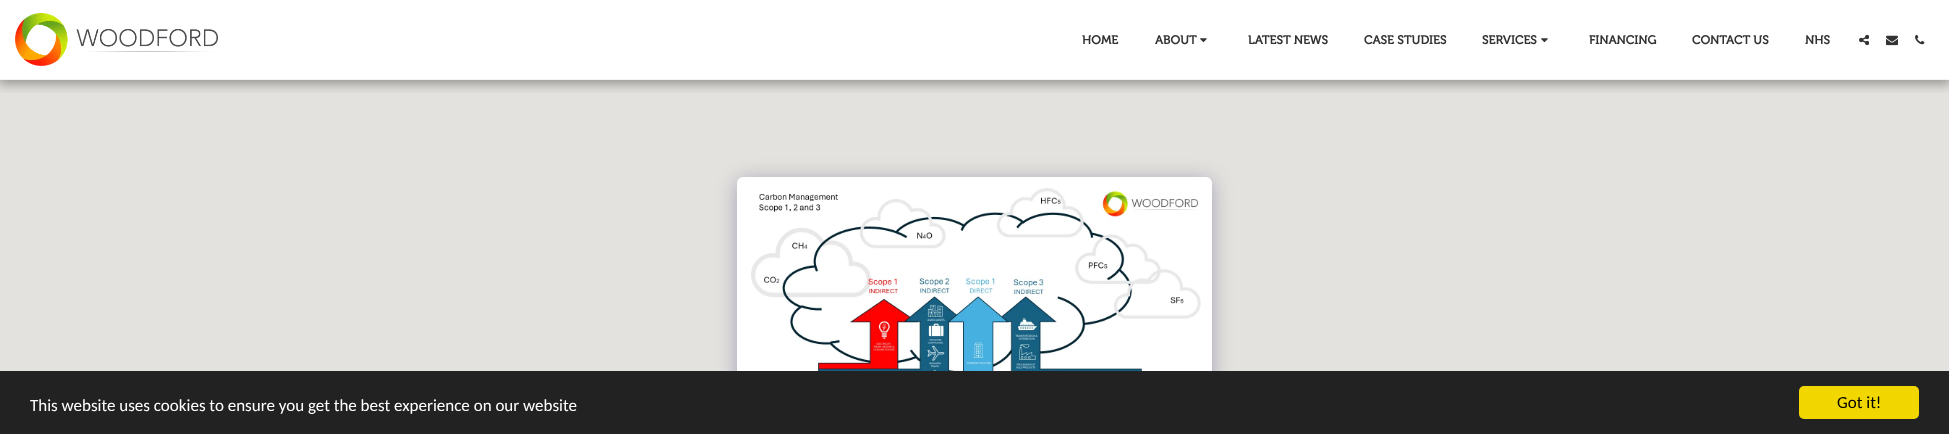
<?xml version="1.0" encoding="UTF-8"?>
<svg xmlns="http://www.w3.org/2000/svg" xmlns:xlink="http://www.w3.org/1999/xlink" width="1949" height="434">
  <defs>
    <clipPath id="clip1"><rect x="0" y="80" width="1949" height="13" /></clipPath>
  </defs>
  <rect width="100%" height="100%" fill="#ffffff" />
  <rect y="80" width="1949" height="291" fill="#e3e2de" />
  <g clip-path="url(#clip1)">
    <rect x="-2" width="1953" height="84" fill="#000000" fill-opacity="0.35" filter="blur(6px)" />
  </g>
  <rect y="79" width="1949" height="1" fill="#f4f4f4" />
  <image x="15" y="13" width="203" height="53" xlink:href="image1.png" />
  <image x="1200" y="38" width="7" height="5" xlink:href="image2.png" />
  <image x="1541" y="38" width="7" height="5" xlink:href="image2.png" />
  <image x="1859" y="34" width="10" height="12" xlink:href="image3.png" />
  <image x="1886" y="35" width="12" height="11" xlink:href="image4.png" />
  <image x="1915" y="34" width="10" height="11" xlink:href="image5.png" />
  <rect x="737" y="180" width="475" height="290" rx="6" fill="#4d3f7a" fill-opacity="0.4" filter="blur(10px)" />
  <rect x="737" y="177" width="475" height="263" rx="6" fill="#ffffff" />
  <image x="751" y="188" width="450" height="183" xlink:href="image6.png" />
  <rect y="371" width="1949" height="63" fill="#222222" />
  <rect x="1799" y="386" width="120" height="33" rx="5" fill="#f1d600" />
  <text x="1082" y="44" style="font-family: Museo; font-size: 12px; font-weight: bold; letter-spacing: 0.1px; fill: #333333">HOME</text>
  <text x="1155" y="44" style="font-family: Museo; font-size: 12px; font-weight: bold; letter-spacing: 0.1px; fill: #333333">ABOUT</text>
  <text x="1248" y="44" style="font-family: Museo; font-size: 12px; font-weight: bold; letter-spacing: 0.1px; fill: #333333">LATEST NEWS</text>
  <text x="1364" y="44" style="font-family: Museo; font-size: 12px; font-weight: bold; letter-spacing: 0.1px; fill: #333333">CASE STUDIES</text>
  <text x="1482" y="44" style="font-family: Museo; font-size: 12px; font-weight: bold; letter-spacing: 0.1px; fill: #333333">SERVICES</text>
  <text x="1589" y="44" style="font-family: Museo; font-size: 12px; font-weight: bold; letter-spacing: 0.1px; fill: #333333">FINANCING</text>
  <text x="1692" y="44" style="font-family: Museo; font-size: 12px; font-weight: bold; letter-spacing: 0.1px; fill: #333333">CONTACT US</text>
  <text x="1805" y="44" style="font-family: Museo; font-size: 12px; font-weight: bold; letter-spacing: 0.1px; fill: #333333">NHS</text>
  <text x="30" y="411" style="font-family: Carlito; font-size: 17px; fill: #ffffff">This website uses cookies to ensure you get the best experience on our website</text>
  <text x="1837" y="408" style="font-family: Carlito; font-size: 17px; fill: #000000">Got it!</text>
</svg>
